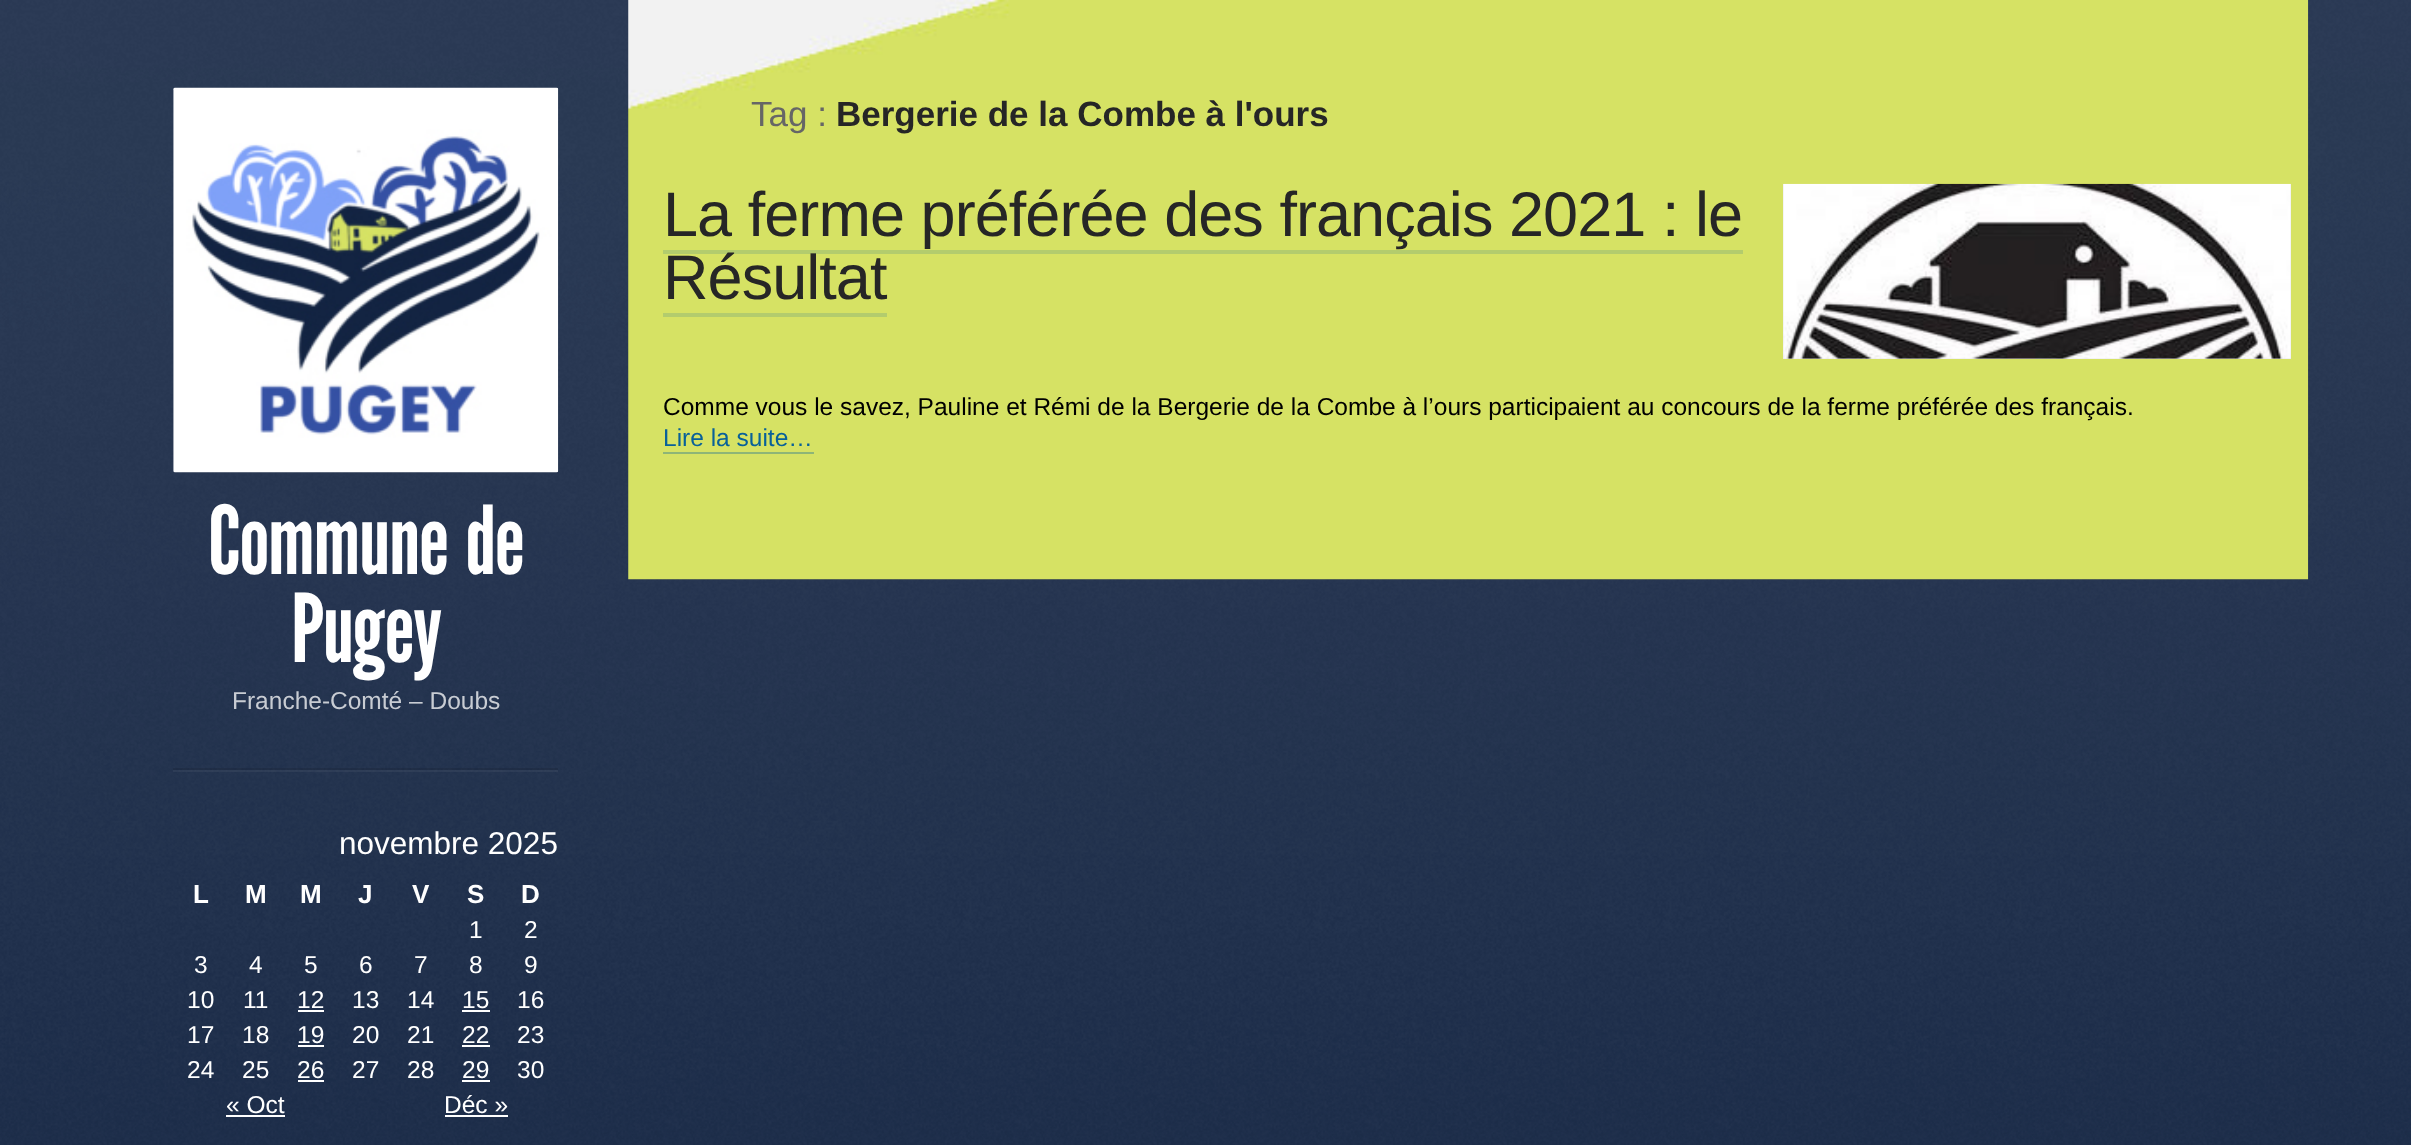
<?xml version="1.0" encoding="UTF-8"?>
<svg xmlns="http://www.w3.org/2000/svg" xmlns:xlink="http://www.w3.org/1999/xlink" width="2411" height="1145">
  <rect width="100%" height="100%" fill="#132442" />
  <image x="0" y="0" width="2411" height="1145" xlink:href="image1.png" />
  <image x="628" y="0" width="1681" height="580" xlink:href="image2.png" />
  <rect x="663" y="250" width="1080" height="4" fill="#b3cc6d" />
  <rect x="663" y="313" width="224" height="4" fill="#b3cc6d" />
  <rect x="1783" y="184" width="508" height="175" fill="#e5e5e5" />
  <image x="1783" y="183" width="508" height="176" xlink:href="image3.png" />
  <rect x="663" y="452" width="151" height="2" fill="#8eb577" />
  <path d="M 173 89 v 683 h 385 v -2 h -385 z" fill="#ffffff" fill-opacity="0.05" />
  <rect x="173" y="768" width="385" height="2" fill="#000000" fill-opacity="0.1" />
  <image x="173" y="87" width="386" height="386" xlink:href="image4.png" />
  <rect x="298" y="1010" width="26" height="2" fill="#ffffff" />
  <rect x="462" y="1010" width="28" height="2" fill="#ffffff" />
  <rect x="298" y="1045" width="26" height="2" fill="#ffffff" />
  <rect x="462" y="1045" width="28" height="2" fill="#ffffff" />
  <rect x="298" y="1080" width="26" height="2" fill="#ffffff" />
  <rect x="462" y="1080" width="28" height="2" fill="#ffffff" />
  <rect x="226" y="1115" width="59" height="2" fill="#ffffff" />
  <rect x="445" y="1115" width="63" height="2" fill="#ffffff" />
  <text x="751" y="126" style="font-family: Liberation Sans; font-size: 35px; fill: #666666">Tag :</text>
  <text x="836" y="126" style="font-family: Liberation Sans; font-size: 35px; font-weight: bold; fill: #262626">Bergerie de la Combe à l'ours</text>
  <text x="663" y="236" style="font-family: Liberation Sans; font-size: 63px; letter-spacing: -0.95px; fill: #262626">La ferme préférée des français 2021 : le</text>
  <text x="663" y="299" style="font-family: Liberation Sans; font-size: 63px; letter-spacing: -0.95px; fill: #262626">Résultat</text>
  <text x="663" y="415" style="font-family: Liberation Sans; font-size: 24.5px; fill: #000000">Comme vous le savez, Pauline et Rémi de la Bergerie de la Combe à l’ours participaient au concours de la ferme préférée des français.</text>
  <text x="663" y="446" style="font-family: Liberation Sans; font-size: 24.5px; fill: #086199">Lire la suite…</text>
  <text x="208" y="574" style="font-family: League Gothic; font-size: 94.5px; letter-spacing: -1.75px; fill: #ffffff">Commune de</text>
  <text x="291" y="662" style="font-family: League Gothic; font-size: 94.5px; letter-spacing: -1.75px; fill: #ffffff">Pugey</text>
  <text x="232" y="709" style="font-family: Liberation Sans; font-size: 24.5px; fill: #c8ccd3">Franche-Comté – Doubs</text>
  <text x="339" y="854" style="font-family: Liberation Sans; font-size: 31.5px; fill: #ffffff">novembre 2025</text>
  <text x="193" y="903" style="font-family: Liberation Sans; font-size: 26px; font-weight: bold; fill: #ffffff">L</text>
  <text x="245" y="903" style="font-family: Liberation Sans; font-size: 26px; font-weight: bold; fill: #ffffff">M</text>
  <text x="300" y="903" style="font-family: Liberation Sans; font-size: 26px; font-weight: bold; fill: #ffffff">M</text>
  <text x="358" y="903" style="font-family: Liberation Sans; font-size: 26px; font-weight: bold; fill: #ffffff">J</text>
  <text x="412" y="903" style="font-family: Liberation Sans; font-size: 26px; font-weight: bold; fill: #ffffff">V</text>
  <text x="467" y="903" style="font-family: Liberation Sans; font-size: 26px; font-weight: bold; fill: #ffffff">S</text>
  <text x="521" y="903" style="font-family: Liberation Sans; font-size: 26px; font-weight: bold; fill: #ffffff">D</text>
  <text x="469" y="938" style="font-family: Liberation Sans; font-size: 24.5px; fill: #ffffff">1</text>
  <text x="524" y="938" style="font-family: Liberation Sans; font-size: 24.5px; fill: #ffffff">2</text>
  <text x="194" y="973" style="font-family: Liberation Sans; font-size: 24.5px; fill: #ffffff">3</text>
  <text x="249" y="973" style="font-family: Liberation Sans; font-size: 24.5px; fill: #ffffff">4</text>
  <text x="304" y="973" style="font-family: Liberation Sans; font-size: 24.5px; fill: #ffffff">5</text>
  <text x="359" y="973" style="font-family: Liberation Sans; font-size: 24.5px; fill: #ffffff">6</text>
  <text x="414" y="973" style="font-family: Liberation Sans; font-size: 24.5px; fill: #ffffff">7</text>
  <text x="469" y="973" style="font-family: Liberation Sans; font-size: 24.5px; fill: #ffffff">8</text>
  <text x="524" y="973" style="font-family: Liberation Sans; font-size: 24.5px; fill: #ffffff">9</text>
  <text x="187" y="1008" style="font-family: Liberation Sans; font-size: 24.5px; fill: #ffffff">10</text>
  <text x="243" y="1008" style="font-family: Liberation Sans; font-size: 24.5px; fill: #ffffff">11</text>
  <text x="297" y="1008" style="font-family: Liberation Sans; font-size: 24.5px; fill: #ffffff">12</text>
  <text x="352" y="1008" style="font-family: Liberation Sans; font-size: 24.5px; fill: #ffffff">13</text>
  <text x="407" y="1008" style="font-family: Liberation Sans; font-size: 24.5px; fill: #ffffff">14</text>
  <text x="462" y="1008" style="font-family: Liberation Sans; font-size: 24.5px; fill: #ffffff">15</text>
  <text x="517" y="1008" style="font-family: Liberation Sans; font-size: 24.5px; fill: #ffffff">16</text>
  <text x="187" y="1043" style="font-family: Liberation Sans; font-size: 24.5px; fill: #ffffff">17</text>
  <text x="242" y="1043" style="font-family: Liberation Sans; font-size: 24.5px; fill: #ffffff">18</text>
  <text x="297" y="1043" style="font-family: Liberation Sans; font-size: 24.5px; fill: #ffffff">19</text>
  <text x="352" y="1043" style="font-family: Liberation Sans; font-size: 24.5px; fill: #ffffff">20</text>
  <text x="407" y="1043" style="font-family: Liberation Sans; font-size: 24.5px; fill: #ffffff">21</text>
  <text x="462" y="1043" style="font-family: Liberation Sans; font-size: 24.5px; fill: #ffffff">22</text>
  <text x="517" y="1043" style="font-family: Liberation Sans; font-size: 24.5px; fill: #ffffff">23</text>
  <text x="187" y="1078" style="font-family: Liberation Sans; font-size: 24.5px; fill: #ffffff">24</text>
  <text x="242" y="1078" style="font-family: Liberation Sans; font-size: 24.5px; fill: #ffffff">25</text>
  <text x="297" y="1078" style="font-family: Liberation Sans; font-size: 24.5px; fill: #ffffff">26</text>
  <text x="352" y="1078" style="font-family: Liberation Sans; font-size: 24.5px; fill: #ffffff">27</text>
  <text x="407" y="1078" style="font-family: Liberation Sans; font-size: 24.5px; fill: #ffffff">28</text>
  <text x="462" y="1078" style="font-family: Liberation Sans; font-size: 24.5px; fill: #ffffff">29</text>
  <text x="517" y="1078" style="font-family: Liberation Sans; font-size: 24.5px; fill: #ffffff">30</text>
  <text x="226" y="1113" style="font-family: Liberation Sans; font-size: 24.5px; fill: #ffffff">« Oct</text>
  <text x="444" y="1113" style="font-family: Liberation Sans; font-size: 24.5px; fill: #ffffff">Déc »</text>
</svg>
